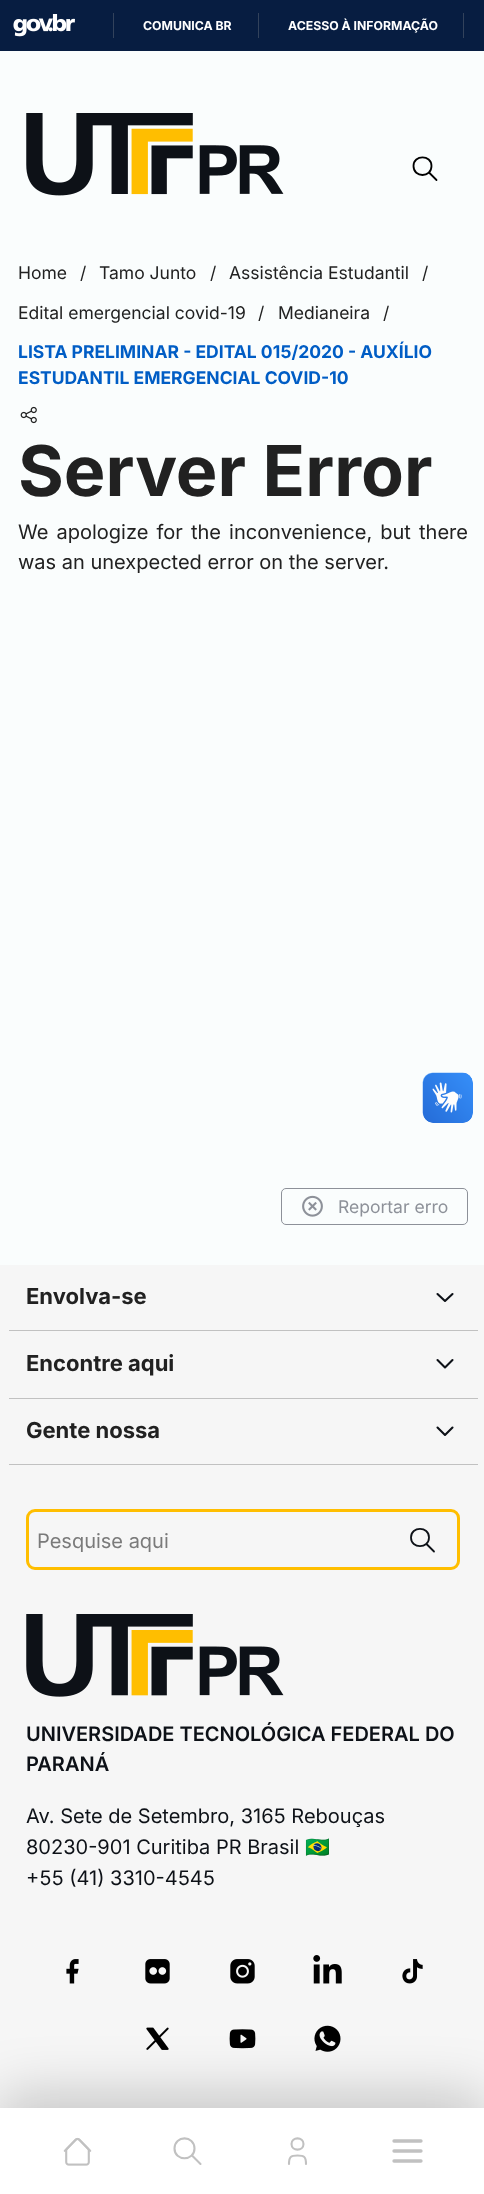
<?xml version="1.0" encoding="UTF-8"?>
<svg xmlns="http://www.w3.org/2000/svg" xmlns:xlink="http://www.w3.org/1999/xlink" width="484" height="2194">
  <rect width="100%" height="100%" fill="#fafdfd" />
  <rect width="484" height="51" fill="#071d41" />
  <image x="13" y="14" width="62" height="23" xlink:href="image1.png" />
  <rect x="113" y="13" width="1" height="25" fill="#32425b" />
  <rect x="258" y="13" width="1" height="25" fill="#32425b" />
  <rect x="463" y="13" width="1" height="25" fill="#32425b" />
  <image x="26" y="113" width="258" height="83" xlink:href="image2.png" />
  <path d="M 436.5 180 l -7.5 -7.5 m -15.5 -6.5 c 0 12 18 12 18 0 c 0 -11.5 -18 -11.5 -18 0 z" fill="none" stroke="#000000" stroke-width="1.8" stroke-linecap="round" stroke-linejoin="round" />
  <rect y="1265" width="484" height="843" fill="#f6f6f6" />
  <image x="146" y="2027" width="23" height="23" xlink:href="image12.png" />
  <image x="229" y="2029" width="27" height="20" xlink:href="image13.png" />
  <image x="314" y="2025" width="27" height="27" xlink:href="image14.png" />
  <rect y="2095" width="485" height="88" fill="#000000" fill-opacity="0.2" filter="blur(28px)" />
  <rect y="2108" width="484" height="86" fill="#ffffff" />
  <image x="63" y="2137" width="29" height="29" xlink:href="image3.png" />
  <path d="M 200.5 2164 l -8.5 -8.5 m -17.5 -7 c 0 13 20 13 20 0 c 0 -13.5 -20 -13.5 -20 0 z" fill="none" stroke="#c1c1c1" stroke-width="2.1" stroke-linecap="round" stroke-linejoin="round" />
  <path d="M 289 2164 c 0 -7 1.5 -8.5 8.5 -8.5 c 7 0 8.5 1.5 8.5 8.5 m -14.5 -20 c 0 7.5 12 7.5 12 0 c 0 -7.5 -12 -7.5 -12 0 z" fill="none" stroke="#c1c1c1" stroke-width="2.1" stroke-linecap="round" stroke-linejoin="round" />
  <path d="M 394 2161 h 27 m -27 -10 h 27 m -27 -10 h 27" fill="none" stroke="#c1c1c1" stroke-width="3.3" stroke-linecap="round" />
  <image x="20" y="406" width="17" height="18" xlink:href="image4.png" />
  <rect x="281.5" y="1188.5" width="186" height="36" rx="4.5" fill="none" stroke="#8d9199" />
  <image x="302" y="1195" width="21" height="22" xlink:href="image5.png" />
  <rect x="9" y="1330" width="469" height="1" fill="#c1c1c1" />
  <path d="M 437.5 1294 l 7.5 7 l 7.5 -7" fill="none" stroke="#0d1117" stroke-width="2.1" stroke-linecap="round" stroke-linejoin="round" />
  <rect x="9" y="1398" width="469" height="1" fill="#c1c1c1" />
  <path d="M 437.5 1360 l 7.5 7.5 l 7.5 -7.5" fill="none" stroke="#0d1117" stroke-width="2.1" stroke-linecap="round" stroke-linejoin="round" />
  <rect x="9" y="1464" width="469" height="1" fill="#c1c1c1" />
  <path d="M 437.5 1427.5 l 7.5 7.5 l 7.5 -7.5" fill="none" stroke="#0d1117" stroke-width="2.1" stroke-linecap="round" stroke-linejoin="round" />
  <rect x="27.5" y="1510.5" width="431" height="58" rx="7.5" fill="none" stroke="#ffbe00" stroke-width="3" />
  <path d="M 434 1551.5 l -7.5 -7.5 m -15.5 -6.5 c 0 11.5 18 11.5 18 0 c 0 -11.5 -18 -11.5 -18 0 z" fill="none" stroke="#0d1117" stroke-width="1.8" stroke-linecap="round" stroke-linejoin="round" />
  <image x="26" y="1614" width="258" height="83" xlink:href="image6.png" />
  <image x="66" y="1959" width="13" height="25" xlink:href="image7.png" />
  <image x="145" y="1959" width="25" height="25" xlink:href="image8.png" />
  <image x="230" y="1959" width="25" height="25" xlink:href="image9.png" />
  <image x="313" y="1955" width="29" height="29" xlink:href="image10.png" />
  <image x="402" y="1959" width="21" height="25" xlink:href="image11.png" />
  <image x="422" y="1072" width="51" height="51" xlink:href="image15.png" />
  <image x="423" y="1073" width="50" height="50" xlink:href="image16.png" />
  <text x="143" y="30" style="font-family: Inter; font-size: 12.25px; font-weight: bold; fill: #ffffff">COMUNICA BR</text>
  <text x="288" y="30" style="font-family: Inter; font-size: 12.25px; font-weight: bold; fill: #ffffff">ACESSO À INFORMAÇÃO</text>
  <text x="18" y="279" style="font-family: Inter; font-size: 17.5px; fill: #212121">Home</text>
  <text x="80" y="279" style="font-family: Inter; font-size: 17.5px; fill: #212121">/</text>
  <text x="99" y="279" style="font-family: Inter; font-size: 17.5px; fill: #212121">Tamo Junto</text>
  <text x="210" y="279" style="font-family: Inter; font-size: 17.5px; fill: #212121">/</text>
  <text x="229" y="279" style="font-family: Inter; font-size: 17.5px; fill: #212121">Assistência Estudantil</text>
  <text x="422" y="279" style="font-family: Inter; font-size: 17.5px; fill: #212121">/</text>
  <text x="18" y="319" style="font-family: Inter; font-size: 17.5px; fill: #212121">Edital emergencial covid-19</text>
  <text x="258" y="319" style="font-family: Inter; font-size: 17.5px; fill: #212121">/</text>
  <text x="278" y="319" style="font-family: Inter; font-size: 17.5px; fill: #212121">Medianeira</text>
  <text x="383" y="319" style="font-family: Inter; font-size: 17.5px; fill: #212121">/</text>
  <text x="18" y="358" style="font-family: Inter; font-size: 17.5px; font-weight: bold; fill: #005dc5">LISTA PRELIMINAR - EDITAL 015/2020 - AUXÍLIO</text>
  <text x="18" y="384" style="font-family: Inter; font-size: 17.5px; font-weight: bold; fill: #005dc5">ESTUDANTIL EMERGENCIAL COVID-10</text>
  <text x="18" y="496" style="font-family: Inter; font-size: 70px; font-weight: bold; fill: #212121">Server Error</text>
  <text x="18" y="539" word-spacing="2.5" style="font-family: Inter; font-size: 20px; fill: #212121">We apologize for the inconvenience, but there</text>
  <text x="18" y="569" style="font-family: Inter; font-size: 20px; fill: #212121">was an unexpected error on the server.</text>
  <text x="338" y="1213" style="font-family: Inter; font-size: 17.5px; fill: #8d9199">Reportar erro</text>
  <text x="26" y="1304" style="font-family: Inter; font-size: 22px; font-weight: bold; fill: #212121">Envolva-se</text>
  <text x="26" y="1371" style="font-family: Inter; font-size: 22px; font-weight: bold; fill: #212121">Encontre aqui</text>
  <text x="26" y="1438" style="font-family: Inter; font-size: 22px; font-weight: bold; fill: #212121">Gente nossa</text>
  <text x="37" y="1548" style="font-family: Inter; font-size: 20px; fill: #7a7a7a">Pesquise aqui</text>
  <text x="26" y="1741" style="font-family: Inter; font-size: 20px; font-weight: 600; fill: #0d1117">UNIVERSIDADE TECNOLÓGICA FEDERAL DO</text>
  <text x="26" y="1771" style="font-family: Inter; font-size: 20px; font-weight: 600; fill: #0d1117">PARANÁ</text>
  <text x="26" y="1823" style="font-family: Inter; font-size: 20px; fill: #0d1117">Av. Sete de Setembro, 3165 Rebouças</text>
  <text x="26" y="1854" style="font-family: Inter; font-size: 20px; fill: #0d1117">80230-901 Curitiba PR Brasil</text>
  <text x="305" y="1854" style="font-family: Noto Color Emoji; font-size: 20px; fill: #0d1117">🇧🇷</text>
  <text x="26" y="1885" style="font-family: Inter; font-size: 20px; fill: #0d1117">+55 (41) 3310-4545</text>
</svg>
